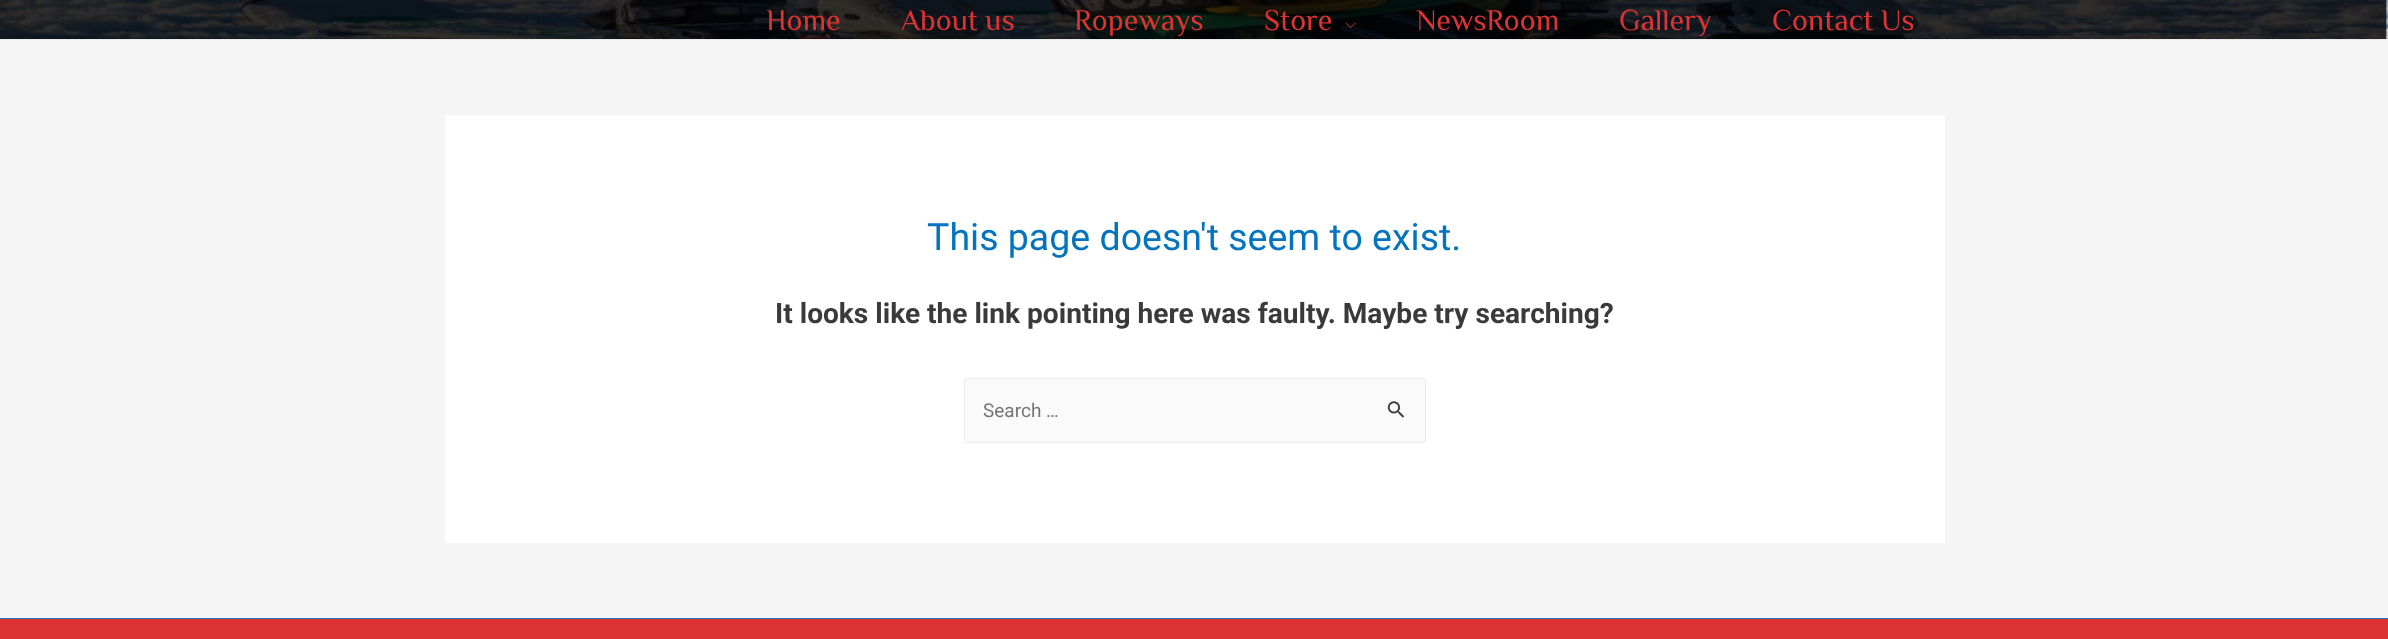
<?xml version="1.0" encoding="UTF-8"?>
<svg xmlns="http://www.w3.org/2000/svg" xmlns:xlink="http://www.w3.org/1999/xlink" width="2388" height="639">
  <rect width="100%" height="100%" fill="#f5f5f5" />
  <image x="0" y="0" width="2388" height="39" xlink:href="image1.png" />
  <rect y="39" width="2388" height="1" fill="#eaeaea" />
  <image x="1345" y="22" width="11" height="6" xlink:href="image2.png" />
  <rect x="445" y="115" width="1500" height="428" fill="#ffffff" />
  <rect x="964.5" y="378.5" width="461" height="64" rx="2" fill="#fafafa" stroke="#eaeaea" />
  <image x="1387" y="401" width="18" height="17" xlink:href="image3.png" />
  <rect y="618" width="2388" height="1" fill="#1e73be" />
  <rect y="619" width="2388" height="20" fill="#dd3333" />
  <text x="766" y="30" style="font-family: El Messiri; font-size: 30px; fill: #dd3333">Home</text>
  <text x="901" y="30" style="font-family: El Messiri; font-size: 30px; fill: #dd3333">About us</text>
  <text x="1074" y="30" style="font-family: El Messiri; font-size: 30px; fill: #dd3333">Ropeways</text>
  <text x="1264" y="30" style="font-family: El Messiri; font-size: 30px; fill: #dd3333">Store</text>
  <text x="1416" y="30" style="font-family: El Messiri; font-size: 30px; fill: #dd3333">NewsRoom</text>
  <text x="1619" y="30" style="font-family: El Messiri; font-size: 30px; fill: #dd3333">Gallery</text>
  <text x="1772" y="30" style="font-family: El Messiri; font-size: 30px; fill: #dd3333">Contact Us</text>
  <text x="927" y="250" style="font-family: Roboto; font-size: 37.5px; fill: #0274be">This page doesn't seem to exist.</text>
  <text x="775" y="323" style="font-family: Roboto; font-size: 28.1px; font-weight: bold; fill: #3a3a3a">It looks like the link pointing here was faulty. Maybe try searching?</text>
  <text x="983" y="417" style="font-family: Roboto; font-size: 19px; fill: #757575">Search …</text>
</svg>
